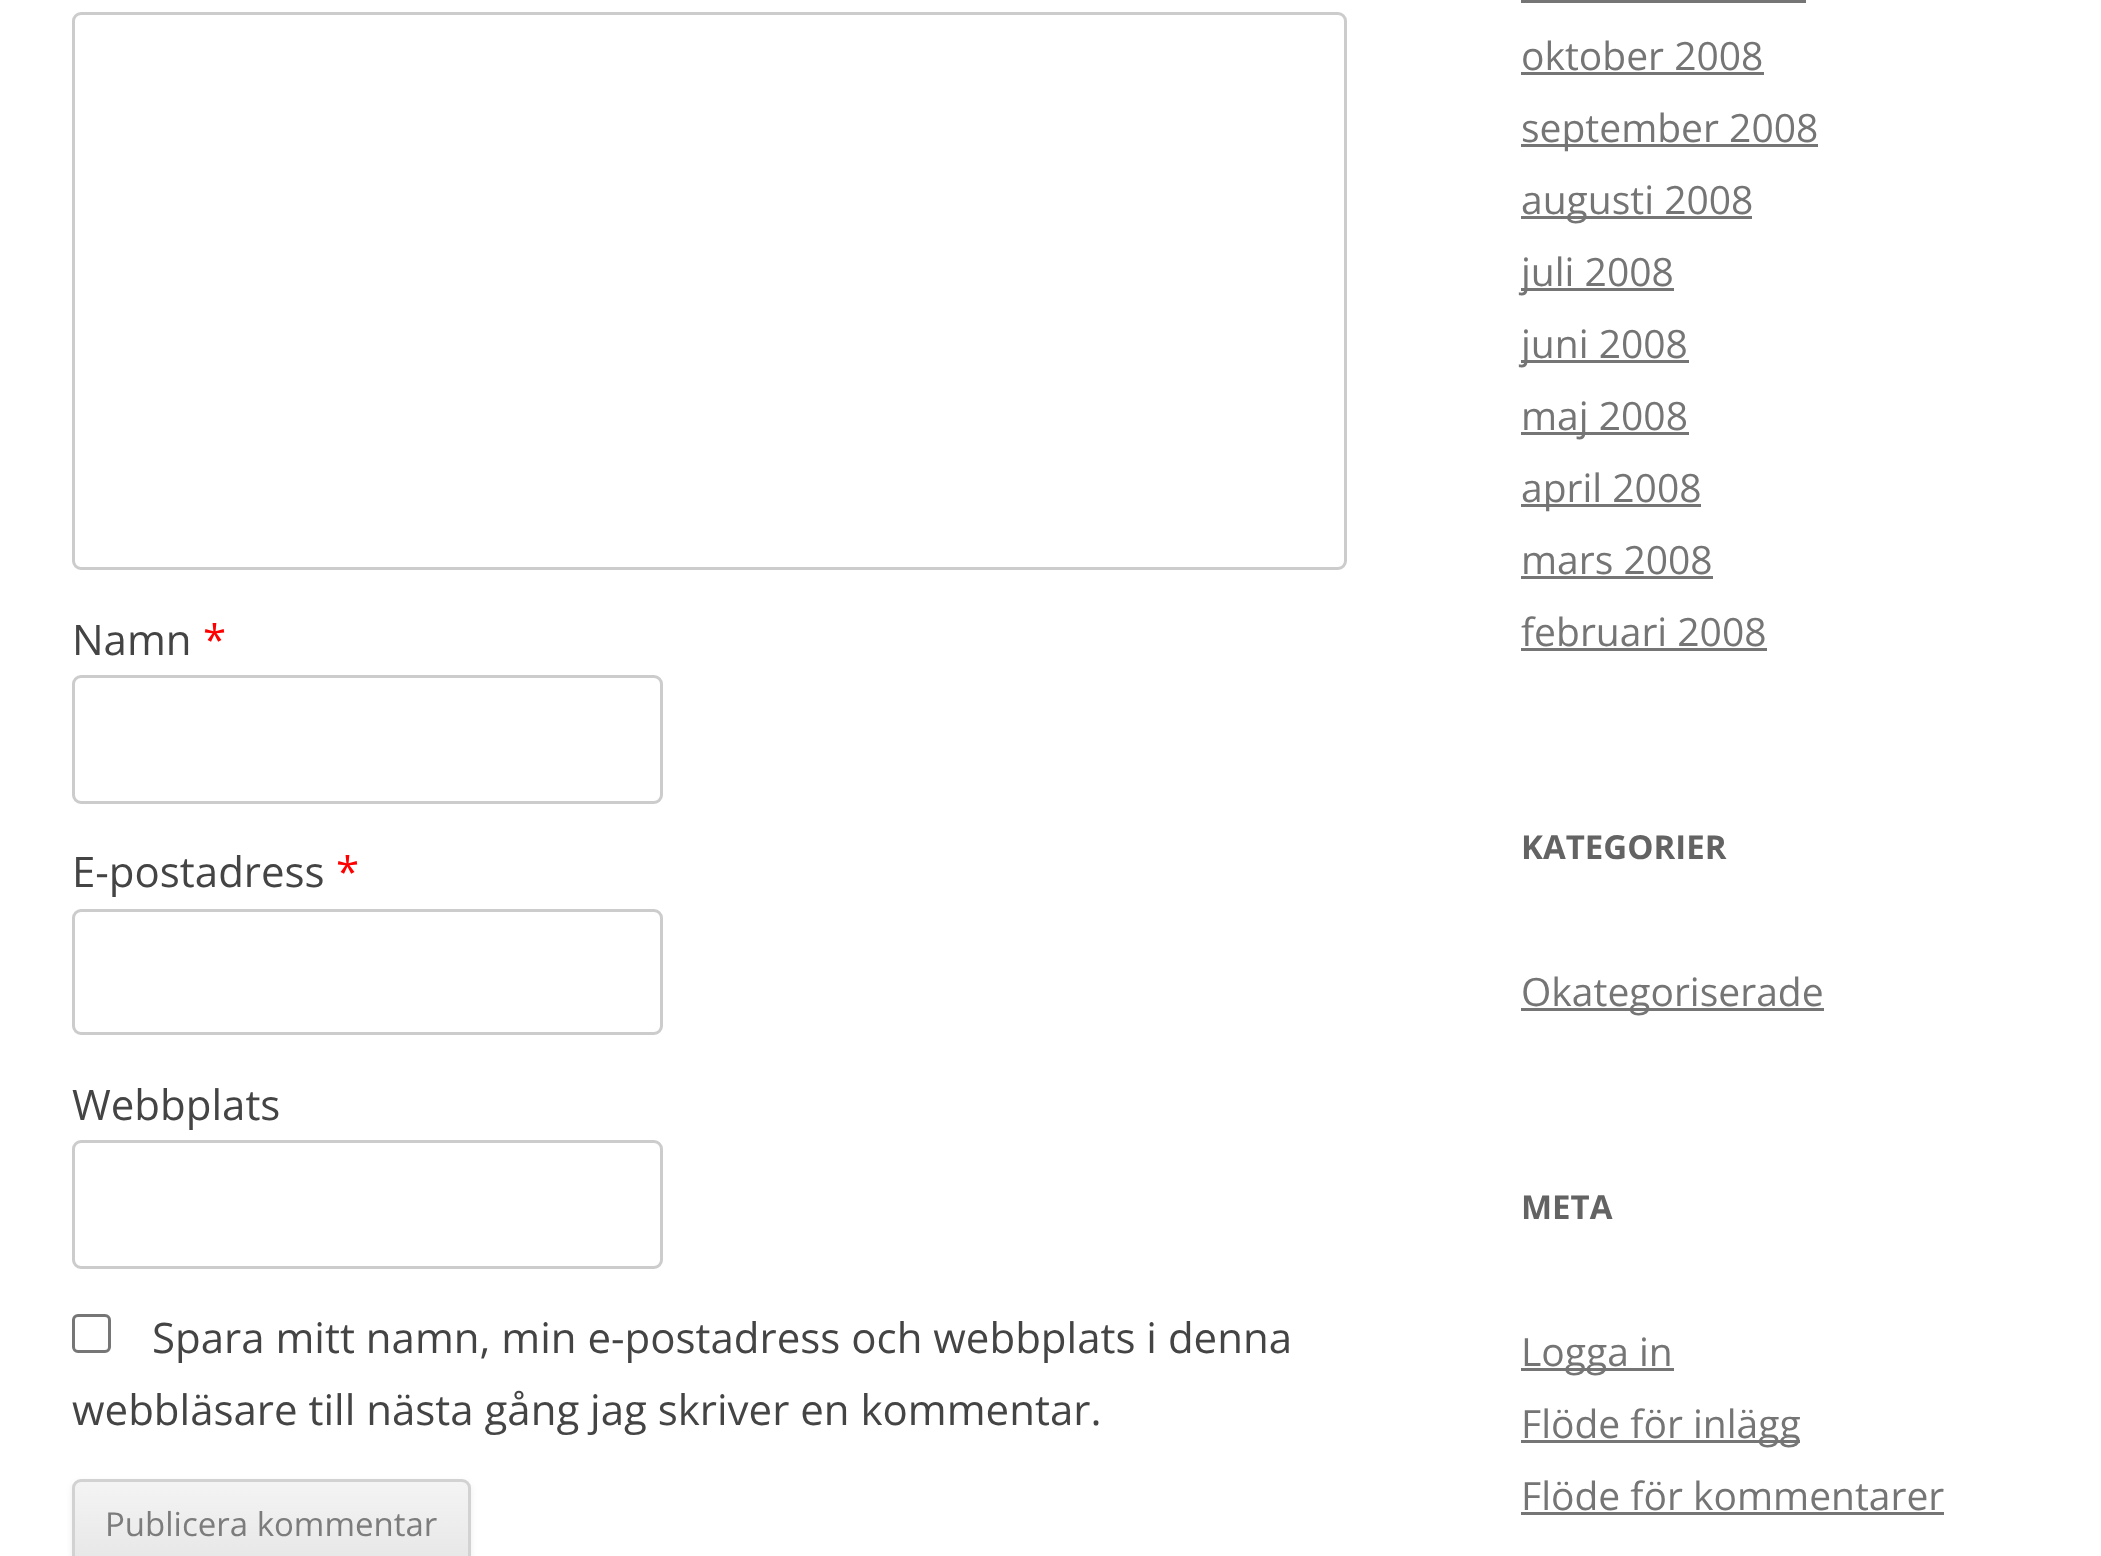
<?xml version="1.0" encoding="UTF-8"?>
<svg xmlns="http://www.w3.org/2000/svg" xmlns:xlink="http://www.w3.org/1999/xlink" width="2101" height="1556">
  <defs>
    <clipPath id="clip1"><rect x="72" y="1479" width="399" height="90" rx="9" /></clipPath>
    <linearGradient id="g1" gradientUnits="userSpaceOnUse" x1="272" y1="1482" x2="272" y2="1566"><stop offset="0" stop-color="#f4f4f4" /><stop offset="1" stop-color="#e6e6e6" /></linearGradient>
  </defs>
  <rect width="100%" height="100%" fill="#ffffff" />
  <rect x="73.5" y="13.5" width="1272" height="555" rx="7.5" fill="none" stroke="#cccccc" stroke-width="3" />
  <rect x="73.5" y="676.5" width="588" height="126" rx="7.5" fill="none" stroke="#cccccc" stroke-width="3" />
  <rect x="73.5" y="910.5" width="588" height="123" rx="7.5" fill="none" stroke="#cccccc" stroke-width="3" />
  <rect x="73.5" y="1141.5" width="588" height="126" rx="7.5" fill="none" stroke="#cccccc" stroke-width="3" />
  <rect x="73.5" y="1315.5" width="36" height="36" rx="4.5" fill="none" stroke="#767676" stroke-width="3" />
  <rect x="72" y="1482" width="399" height="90" rx="9" fill="#404040" fill-opacity="0.1" filter="blur(3px)" />
  <g clip-path="url(#clip1)">
    <rect x="72" y="1482" width="399" height="74" fill="url(#g1)" />
  </g>
  <rect x="73.5" y="1480.5" width="396" height="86" rx="7.5" fill="none" stroke="#d2d2d2" stroke-width="3" />
  <rect x="1521" width="285" height="3" fill="#757575" />
  <rect x="1521" y="72" width="243" height="3" fill="#757575" />
  <rect x="1521" y="144" width="297" height="3" fill="#757575" />
  <rect x="1521" y="216" width="231" height="3" fill="#757575" />
  <rect x="1521" y="288" width="153" height="3" fill="#757575" />
  <rect x="1521" y="360" width="168" height="3" fill="#757575" />
  <rect x="1521" y="432" width="168" height="3" fill="#757575" />
  <rect x="1521" y="504" width="180" height="3" fill="#757575" />
  <rect x="1521" y="576" width="192" height="3" fill="#757575" />
  <rect x="1521" y="648" width="246" height="3" fill="#757575" />
  <rect x="1521" y="1008" width="303" height="3" fill="#757575" />
  <rect x="1521" y="1368" width="153" height="3" fill="#757575" />
  <rect x="1521" y="1440" width="279" height="3" fill="#757575" />
  <rect x="1521" y="1512" width="423" height="3" fill="#757575" />
  <text x="72" y="655" style="font-family: Open Sans; font-size: 42px; fill: #444444">Namn</text>
  <text x="203" y="655" style="font-family: Open Sans; font-size: 42px; fill: #ff0000">*</text>
  <text x="72" y="887" style="font-family: Open Sans; font-size: 42px; fill: #444444">E-postadress</text>
  <text x="336" y="887" style="font-family: Open Sans; font-size: 42px; fill: #ff0000">*</text>
  <text x="72" y="1120" style="font-family: Open Sans; font-size: 42px; fill: #444444">Webbplats</text>
  <text x="152" y="1353" style="font-family: Open Sans; font-size: 42px; fill: #444444">Spara mitt namn, min e-postadress och webbplats i denna</text>
  <text x="72" y="1425" style="font-family: Open Sans; font-size: 42px; fill: #444444">webbläsare till nästa gång jag skriver en kommentar.</text>
  <text x="105" y="1536" style="font-family: Open Sans; font-size: 33px; fill: #7c7c7c">Publicera kommentar</text>
  <text x="1521" y="70" style="font-family: Open Sans; font-size: 39px; fill: #757575">oktober 2008</text>
  <text x="1521" y="142" style="font-family: Open Sans; font-size: 39px; fill: #757575">september 2008</text>
  <text x="1521" y="214" style="font-family: Open Sans; font-size: 39px; fill: #757575">augusti 2008</text>
  <text x="1521" y="286" style="font-family: Open Sans; font-size: 39px; fill: #757575">juli 2008</text>
  <text x="1521" y="358" style="font-family: Open Sans; font-size: 39px; fill: #757575">juni 2008</text>
  <text x="1521" y="430" style="font-family: Open Sans; font-size: 39px; fill: #757575">maj 2008</text>
  <text x="1521" y="502" style="font-family: Open Sans; font-size: 39px; fill: #757575">april 2008</text>
  <text x="1521" y="574" style="font-family: Open Sans; font-size: 39px; fill: #757575">mars 2008</text>
  <text x="1521" y="646" style="font-family: Open Sans; font-size: 39px; fill: #757575">februari 2008</text>
  <text x="1521" y="859" style="font-family: Open Sans; font-size: 33px; font-weight: bold; fill: #636363">KATEGORIER</text>
  <text x="1521" y="1006" style="font-family: Open Sans; font-size: 39px; fill: #757575">Okategoriserade</text>
  <text x="1521" y="1219" style="font-family: Open Sans; font-size: 33px; font-weight: bold; fill: #636363">META</text>
  <text x="1521" y="1366" style="font-family: Open Sans; font-size: 39px; fill: #757575">Logga in</text>
  <text x="1521" y="1438" style="font-family: Open Sans; font-size: 39px; fill: #757575">Flöde för inlägg</text>
  <text x="1521" y="1510" style="font-family: Open Sans; font-size: 39px; fill: #757575">Flöde för kommentarer</text>
</svg>
